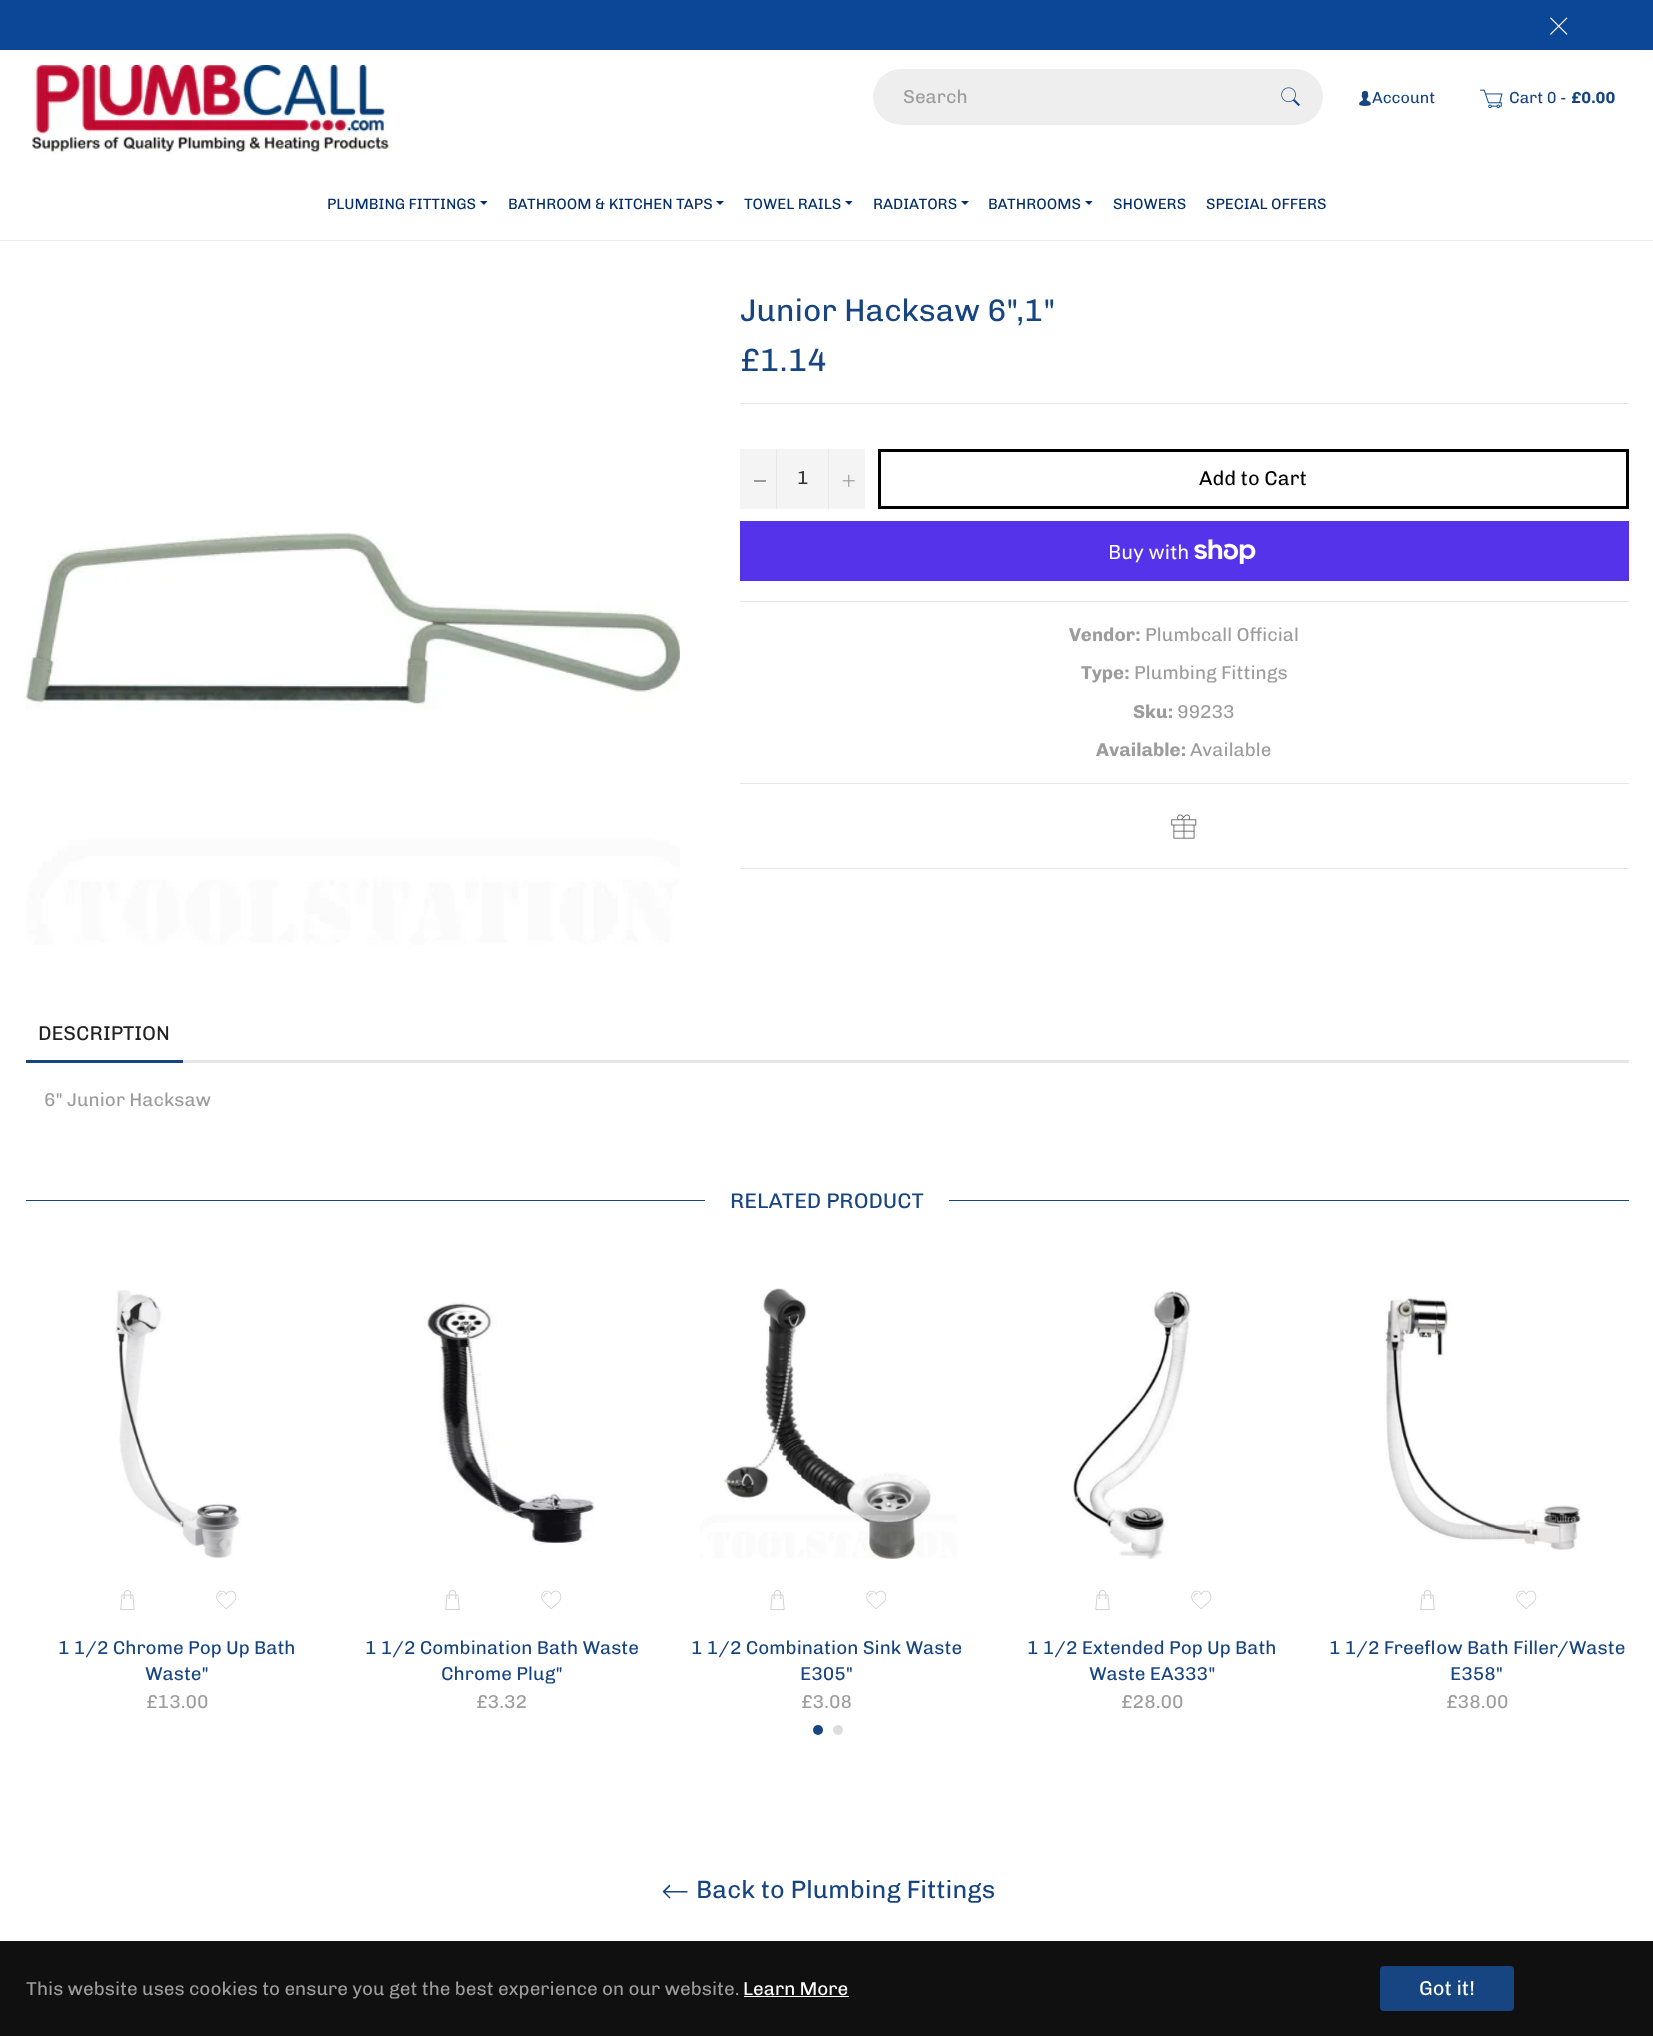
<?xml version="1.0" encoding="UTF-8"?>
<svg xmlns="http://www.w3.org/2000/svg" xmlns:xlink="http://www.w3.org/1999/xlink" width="1653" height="2036">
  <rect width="100%" height="100%" fill="#ffffff" />
  <rect width="1653" height="50" fill="#0b4796" />
  <image x="1550" y="17" width="18" height="18" xlink:href="image1.png" />
  <image x="32" y="65" width="359" height="89" xlink:href="image2.png" />
  <rect x="873" y="69" width="450" height="56" rx="28" fill="#eeeeee" />
  <image x="1281" y="87" width="19" height="20" xlink:href="image3.png" />
  <image x="1359" y="91" width="12" height="15" xlink:href="image4.png" />
  <image x="1480" y="89" width="23" height="20" xlink:href="image5.png" />
  <path d="M 480 201 h 7.5 l -3.5 4 z" fill="#042e65" />
  <path d="M 716 201 h 8 l -4 4 z" fill="#042e65" />
  <path d="M 845 201 h 7.5 l -3.5 4 z" fill="#042e65" />
  <path d="M 961 201 h 8 l -4 4 z" fill="#042e65" />
  <path d="M 1085 201 h 7.5 l -3.5 4 z" fill="#042e65" />
  <rect y="240" width="1653" height="1" fill="#eeeeee" />
  <image x="26" y="532" width="654" height="413" xlink:href="image6.png" />
  <rect x="740" y="403" width="889" height="1" fill="#e6e6e6" />
  <rect x="740" y="449" width="125" height="60" fill="#f4f4f4" />
  <rect x="776" y="449" width="1" height="60" fill="#e7e7e7" />
  <rect x="754" y="480" width="12" height="2" fill="#999999" />
  <rect x="828" y="449" width="1" height="60" fill="#e7e7e7" />
  <image x="842" y="474" width="13" height="13" xlink:href="image7.png" />
  <rect x="879.5" y="450.5" width="748" height="57" fill="none" stroke="#000000" stroke-width="3" />
  <rect x="740" y="521" width="889" height="60" fill="#5433eb" />
  <image x="1194" y="539" width="62" height="25" xlink:href="image8.png" />
  <rect x="740" y="601" width="889" height="1" fill="#e6e6e6" />
  <rect x="740" y="783" width="889" height="1" fill="#e6e6e6" />
  <image x="1171" y="814" width="26" height="25" xlink:href="image9.png" />
  <rect x="740" y="868" width="889" height="1" fill="#e6e6e6" />
  <rect x="183" y="1060" width="1446" height="3" fill="#e6e6e6" />
  <rect x="26" y="1060" width="157" height="3" fill="#174582" />
  <rect x="26" y="1200" width="1603" height="1" fill="#174582" />
  <rect x="705" y="1200" width="244" height="1" fill="#ffffff" />
  <image x="115" y="1290" width="126" height="269" xlink:href="image10.png" />
  <image x="120" y="1590" width="15" height="20" xlink:href="image11.png" />
  <image x="216" y="1590" width="21" height="20" xlink:href="image12.png" />
  <image x="423" y="1302" width="172" height="243" xlink:href="image13.png" />
  <image x="445" y="1590" width="15" height="20" xlink:href="image11.png" />
  <image x="541" y="1590" width="21" height="20" xlink:href="image12.png" />
  <image x="700" y="1288" width="257" height="271" xlink:href="image14.png" />
  <image x="770" y="1590" width="15" height="20" xlink:href="image11.png" />
  <image x="866" y="1590" width="21" height="20" xlink:href="image12.png" />
  <image x="1073" y="1291" width="118" height="268" xlink:href="image15.png" />
  <image x="1095" y="1590" width="15" height="20" xlink:href="image11.png" />
  <image x="1191" y="1590" width="21" height="20" xlink:href="image12.png" />
  <image x="1384" y="1296" width="197" height="254" xlink:href="image16.png" />
  <image x="1420" y="1590" width="15" height="20" xlink:href="image11.png" />
  <image x="1516" y="1590" width="21" height="20" xlink:href="image12.png" />
  <circle cx="818" cy="1730" r="5" fill="#174582" />
  <circle cx="838" cy="1730" r="5" fill="#dddddd" />
  <path d="M 687.5 1891 h -22 l 5 -5 l -1 -1.5 l -7 7 l 7 7 l 1 -1 l -5 -5 h 22 z" fill="#174582" />
  <rect y="1941" width="1653" height="95" fill="#101010" />
  <rect x="744" y="1996" width="105" height="1" fill="#ffffff" />
  <rect x="1380" y="1966" width="134" height="45" rx="4" fill="#174582" />
  <text x="903" y="103" style="font-family: Chivo; font-size: 18.75px; fill: #9c9c9c">Search</text>
  <text x="1372" y="103" style="font-family: Chivo; font-size: 16px; fill: #174582">Account</text>
  <text x="1509" y="103" style="font-family: Chivo; font-size: 16px; fill: #174582">Cart 0 -</text>
  <text x="1571" y="103" style="font-family: Chivo; font-size: 16px; font-weight: bold; fill: #174582">£0.00</text>
  <text x="327" y="209" style="font-family: Chivo; font-size: 15px; fill: #042e65">PLUMBING FITTINGS</text>
  <text x="508" y="209" style="font-family: Chivo; font-size: 15px; fill: #042e65">BATHROOM &amp; KITCHEN TAPS</text>
  <text x="744" y="209" style="font-family: Chivo; font-size: 15px; fill: #042e65">TOWEL RAILS</text>
  <text x="873" y="209" style="font-family: Chivo; font-size: 15px; fill: #042e65">RADIATORS</text>
  <text x="988" y="209" style="font-family: Chivo; font-size: 15px; fill: #042e65">BATHROOMS</text>
  <text x="1113" y="209" style="font-family: Chivo; font-size: 15px; fill: #042e65">SHOWERS</text>
  <text x="1206" y="209" style="font-family: Chivo; font-size: 15px; fill: #042e65">SPECIAL OFFERS</text>
  <text x="740" y="321" style="font-family: Chivo; font-size: 31.25px; fill: #174582">Junior Hacksaw 6",1"</text>
  <text x="740" y="371" style="font-family: Chivo; font-size: 32px; fill: #174582">£1.14</text>
  <text x="797" y="484" style="font-family: Chivo; font-size: 18.75px; fill: #333333">1</text>
  <text x="1199" y="485" style="font-family: Chivo; font-size: 20px; fill: #000000">Add to Cart</text>
  <text x="1108" y="559" style="font-family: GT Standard; font-size: 20px; fill: #ffffff">Buy with</text>
  <text x="1069" y="641" style="font-family: Chivo; font-size: 18.75px; font-weight: bold; fill: #9c9c9c">Vendor:</text>
  <text x="1145" y="641" style="font-family: Chivo; font-size: 18.75px; fill: #9c9c9c">Plumbcall Official</text>
  <text x="1081" y="679" style="font-family: Chivo; font-size: 18.75px; font-weight: bold; fill: #9c9c9c">Type:</text>
  <text x="1134" y="679" style="font-family: Chivo; font-size: 18.75px; fill: #9c9c9c">Plumbing Fittings</text>
  <text x="1133" y="718" style="font-family: Chivo; font-size: 18.75px; font-weight: bold; fill: #9c9c9c">Sku:</text>
  <text x="1177" y="718" style="font-family: Chivo; font-size: 18.75px; fill: #9c9c9c">99233</text>
  <text x="1096" y="756" style="font-family: Chivo; font-size: 18.75px; font-weight: bold; fill: #9c9c9c">Available:</text>
  <text x="1190" y="756" style="font-family: Chivo; font-size: 18.75px; fill: #9c9c9c">Available</text>
  <text x="38" y="1040" style="font-family: Chivo; font-size: 20px; fill: #222222">DESCRIPTION</text>
  <text x="44" y="1106" style="font-family: Chivo; font-size: 18.75px; fill: #9c9c9c">6" Junior Hacksaw</text>
  <text x="730" y="1208" style="font-family: Chivo; font-size: 21.25px; fill: #174582">RELATED PRODUCT</text>
  <text x="58" y="1654" style="font-family: Chivo; font-size: 18.75px; fill: #174582">1 1/2 Chrome Pop Up Bath</text>
  <text x="145" y="1680" style="font-family: Chivo; font-size: 18.75px; fill: #174582">Waste"</text>
  <text x="146" y="1708" style="font-family: Chivo; font-size: 18.75px; fill: #9c9c9c">£13.00</text>
  <text x="365" y="1654" style="font-family: Chivo; font-size: 18.75px; fill: #174582">1 1/2 Combination Bath Waste</text>
  <text x="441" y="1680" style="font-family: Chivo; font-size: 18.75px; fill: #174582">Chrome Plug"</text>
  <text x="476" y="1708" style="font-family: Chivo; font-size: 18.75px; fill: #9c9c9c">£3.32</text>
  <text x="691" y="1654" style="font-family: Chivo; font-size: 18.75px; fill: #174582">1 1/2 Combination Sink Waste</text>
  <text x="800" y="1680" style="font-family: Chivo; font-size: 18.75px; fill: #174582">E305"</text>
  <text x="801" y="1708" style="font-family: Chivo; font-size: 18.75px; fill: #9c9c9c">£3.08</text>
  <text x="1027" y="1654" style="font-family: Chivo; font-size: 18.75px; fill: #174582">1 1/2 Extended Pop Up Bath</text>
  <text x="1089" y="1680" style="font-family: Chivo; font-size: 18.75px; fill: #174582">Waste EA333"</text>
  <text x="1121" y="1708" style="font-family: Chivo; font-size: 18.75px; fill: #9c9c9c">£28.00</text>
  <text x="1329" y="1654" style="font-family: Chivo; font-size: 18.75px; fill: #174582">1 1/2 Freeflow Bath Filler/Waste</text>
  <text x="1450" y="1680" style="font-family: Chivo; font-size: 18.75px; fill: #174582">E358"</text>
  <text x="1446" y="1708" style="font-family: Chivo; font-size: 18.75px; fill: #9c9c9c">£38.00</text>
  <text x="696" y="1898" style="font-family: Chivo; font-size: 25px; fill: #174582">Back to Plumbing Fittings</text>
  <text x="26" y="1995" style="font-family: Chivo; font-size: 18.75px; fill: #9c9c9c">This website uses cookies to ensure you get the best experience on our website.</text>
  <text x="743" y="1995" style="font-family: Chivo; font-size: 18.75px; fill: #ffffff">Learn More</text>
  <text x="1419" y="1995" style="font-family: Chivo; font-size: 20px; fill: #ffffff">Got it!</text>
</svg>
